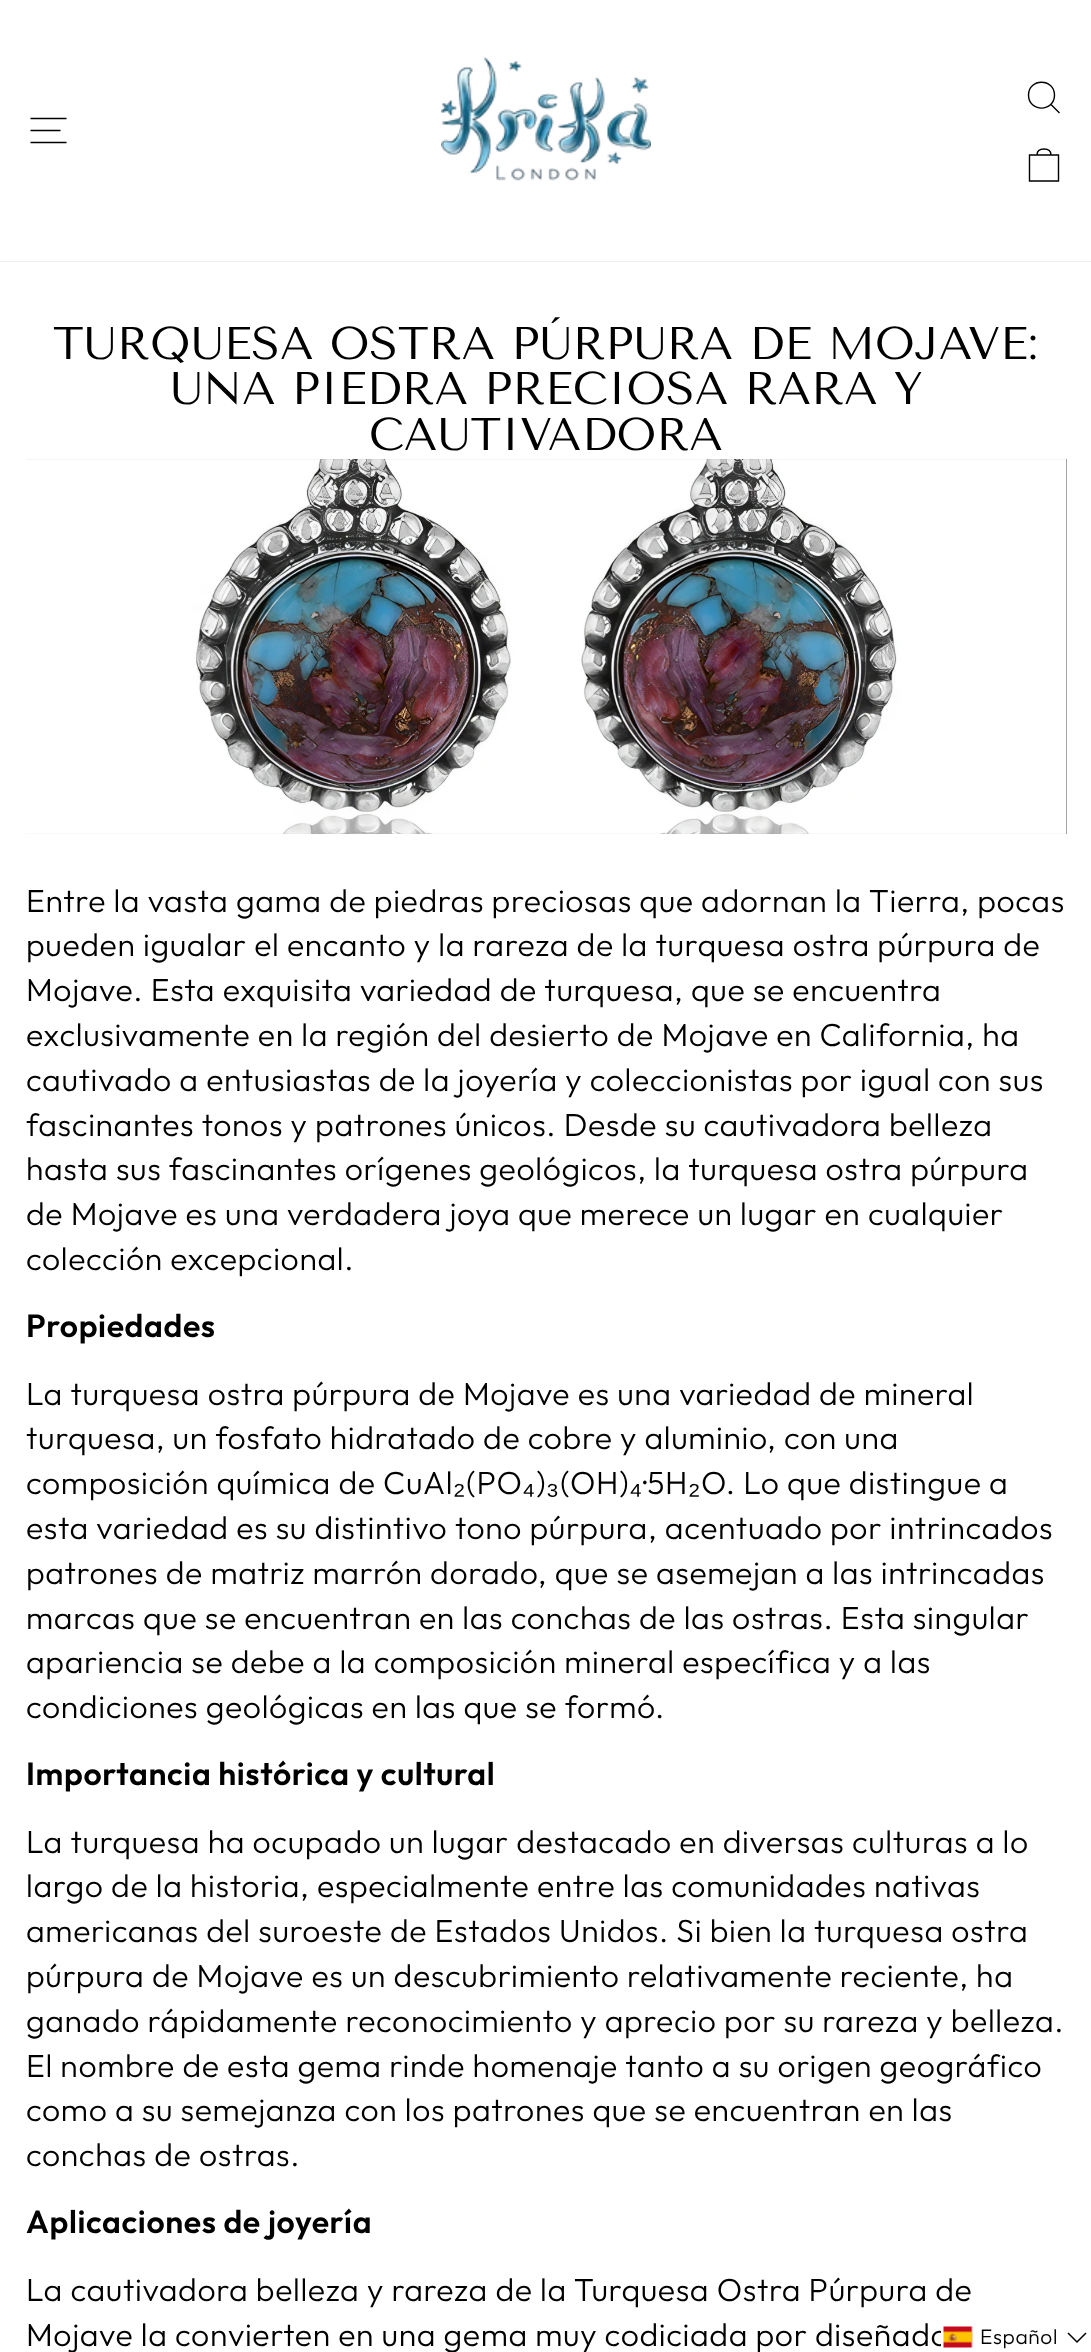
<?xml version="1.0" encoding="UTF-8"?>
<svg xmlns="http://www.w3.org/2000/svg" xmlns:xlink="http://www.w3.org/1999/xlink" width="1091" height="2352">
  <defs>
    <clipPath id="clip1"><rect x="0" y="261" width="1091" height="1" /></clipPath>
  </defs>
  <rect width="100%" height="100%" fill="#ffffff" />
  <g clip-path="url(#clip1)">
    <rect width="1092" height="261" fill="#000000" fill-opacity="0.2" filter="blur(1px)" />
  </g>
  <path d="M 30.5 118.5 h 36 m -36 12 h 30 m -30 12 h 36" fill="none" stroke="#000000" stroke-width="1.4" />
  <image x="441" y="57" width="210" height="124" xlink:href="image1.png" />
  <path d="M 1054.5 95 c 0 17.5 -26 17.5 -26 0 c 0 -17 26 -17 26 0 z m 5 18 l -8.5 -8.5" fill="none" stroke="#000000" stroke-width="1.4" />
  <path d="M 1029.5 155 h 29 v 26 h -29 z m 7.5 0 c 0 -5 3 -6 7 -6 c 4 0 7 1 7 6" fill="none" stroke="#000000" stroke-width="1.4" />
  <rect x="26" y="459" width="1041" height="375" fill="#0f0f0f" />
  <image x="26" y="459" width="1041" height="375" xlink:href="image2.png" />
  <path d="M 1068 2333 l 9 9 l 9 -9" fill="none" stroke="#000000" stroke-width="1.5" />
  <text x="53" y="359" style="font-family: Tenor Sans; font-size: 45.9px; fill: #000000">TURQUESA OSTRA PÚRPURA DE MOJAVE:</text>
  <text x="170" y="404" style="font-family: Tenor Sans; font-size: 45.9px; fill: #000000">UNA PIEDRA PRECIOSA RARA Y</text>
  <text x="369" y="450" style="font-family: Tenor Sans; font-size: 45.9px; fill: #000000">CAUTIVADORA</text>
  <text x="26" y="912" style="font-family: Outfit; font-size: 32px; font-weight: 300; letter-spacing: 0.62px; fill: #000000">Entre la vasta gama de piedras preciosas que adornan la Tierra, pocas</text>
  <text x="26" y="956" style="font-family: Outfit; font-size: 32px; font-weight: 300; letter-spacing: 0.62px; fill: #000000">pueden igualar el encanto y la rareza de la turquesa ostra púrpura de</text>
  <text x="26" y="1001" style="font-family: Outfit; font-size: 32px; font-weight: 300; letter-spacing: 0.62px; fill: #000000">Mojave. Esta exquisita variedad de turquesa, que se encuentra</text>
  <text x="26" y="1046" style="font-family: Outfit; font-size: 32px; font-weight: 300; letter-spacing: 0.62px; fill: #000000">exclusivamente en la región del desierto de Mojave en California, ha</text>
  <text x="26" y="1091" style="font-family: Outfit; font-size: 32px; font-weight: 300; letter-spacing: 0.62px; fill: #000000">cautivado a entusiastas de la joyería y coleccionistas por igual con sus</text>
  <text x="26" y="1136" style="font-family: Outfit; font-size: 32px; font-weight: 300; letter-spacing: 0.62px; fill: #000000">fascinantes tonos y patrones únicos. Desde su cautivadora belleza</text>
  <text x="26" y="1180" style="font-family: Outfit; font-size: 32px; font-weight: 300; letter-spacing: 0.62px; fill: #000000">hasta sus fascinantes orígenes geológicos, la turquesa ostra púrpura</text>
  <text x="26" y="1225" style="font-family: Outfit; font-size: 32px; font-weight: 300; letter-spacing: 0.62px; fill: #000000">de Mojave es una verdadera joya que merece un lugar en cualquier</text>
  <text x="26" y="1270" style="font-family: Outfit; font-size: 32px; font-weight: 300; letter-spacing: 0.62px; fill: #000000">colección excepcional.</text>
  <text x="26" y="1337" style="font-family: Outfit; font-size: 32px; font-weight: 600; letter-spacing: 0.62px; fill: #000000">Propiedades</text>
  <text x="26" y="1405" style="font-family: Outfit; font-size: 32px; font-weight: 300; letter-spacing: 0.62px; fill: #000000">La turquesa ostra púrpura de Mojave es una variedad de mineral</text>
  <text x="26" y="1449" style="font-family: Outfit; font-size: 32px; font-weight: 300; letter-spacing: 0.62px; fill: #000000">turquesa, un fosfato hidratado de cobre y aluminio, con una</text>
  <text x="26" y="1494" style="font-family: Outfit; font-size: 32px; font-weight: 300; letter-spacing: 0.62px; fill: #000000">composición química de CuAl</text>
  <text x="453" y="1494" style="font-family: Liberation Sans; font-size: 32px; letter-spacing: 0.62px; fill: #000000">₂</text>
  <text x="466" y="1494" style="font-family: Outfit; font-size: 32px; font-weight: 300; letter-spacing: 0.62px; fill: #000000">(PO</text>
  <text x="522" y="1494" style="font-family: Liberation Sans; font-size: 32px; letter-spacing: 0.62px; fill: #000000">₄</text>
  <text x="536" y="1494" style="font-family: Outfit; font-size: 32px; font-weight: 300; letter-spacing: 0.62px; fill: #000000">)</text>
  <text x="546" y="1494" style="font-family: Liberation Sans; font-size: 32px; letter-spacing: 0.62px; fill: #000000">₃</text>
  <text x="560" y="1494" style="font-family: Outfit; font-size: 32px; font-weight: 300; letter-spacing: 0.62px; fill: #000000">(OH)</text>
  <text x="629" y="1494" style="font-family: Liberation Sans; font-size: 32px; letter-spacing: 0.62px; fill: #000000">₄</text>
  <text x="643" y="1494" style="font-family: Outfit; font-size: 32px; font-weight: 300; letter-spacing: 0.62px; fill: #000000">·5H</text>
  <text x="688" y="1494" style="font-family: Liberation Sans; font-size: 32px; letter-spacing: 0.62px; fill: #000000">₂</text>
  <text x="701" y="1494" style="font-family: Outfit; font-size: 32px; font-weight: 300; letter-spacing: 0.62px; fill: #000000">O. Lo que distingue a</text>
  <text x="26" y="1539" style="font-family: Outfit; font-size: 32px; font-weight: 300; letter-spacing: 0.62px; fill: #000000">esta variedad es su distintivo tono púrpura, acentuado por intrincados</text>
  <text x="26" y="1584" style="font-family: Outfit; font-size: 32px; font-weight: 300; letter-spacing: 0.62px; fill: #000000">patrones de matriz marrón dorado, que se asemejan a las intrincadas</text>
  <text x="26" y="1629" style="font-family: Outfit; font-size: 32px; font-weight: 300; letter-spacing: 0.62px; fill: #000000">marcas que se encuentran en las conchas de las ostras. Esta singular</text>
  <text x="26" y="1673" style="font-family: Outfit; font-size: 32px; font-weight: 300; letter-spacing: 0.62px; fill: #000000">apariencia se debe a la composición mineral específica y a las</text>
  <text x="26" y="1718" style="font-family: Outfit; font-size: 32px; font-weight: 300; letter-spacing: 0.62px; fill: #000000">condiciones geológicas en las que se formó.</text>
  <text x="26" y="1785" style="font-family: Outfit; font-size: 32px; font-weight: 600; letter-spacing: 0.62px; fill: #000000">Importancia histórica y cultural</text>
  <text x="26" y="1853" style="font-family: Outfit; font-size: 32px; font-weight: 300; letter-spacing: 0.62px; fill: #000000">La turquesa ha ocupado un lugar destacado en diversas culturas a lo</text>
  <text x="26" y="1897" style="font-family: Outfit; font-size: 32px; font-weight: 300; letter-spacing: 0.62px; fill: #000000">largo de la historia, especialmente entre las comunidades nativas</text>
  <text x="26" y="1942" style="font-family: Outfit; font-size: 32px; font-weight: 300; letter-spacing: 0.62px; fill: #000000">americanas del suroeste de Estados Unidos. Si bien la turquesa ostra</text>
  <text x="26" y="1987" style="font-family: Outfit; font-size: 32px; font-weight: 300; letter-spacing: 0.62px; fill: #000000">púrpura de Mojave es un descubrimiento relativamente reciente, ha</text>
  <text x="26" y="2032" style="font-family: Outfit; font-size: 32px; font-weight: 300; letter-spacing: 0.62px; fill: #000000">ganado rápidamente reconocimiento y aprecio por su rareza y belleza.</text>
  <text x="26" y="2077" style="font-family: Outfit; font-size: 32px; font-weight: 300; letter-spacing: 0.62px; fill: #000000">El nombre de esta gema rinde homenaje tanto a su origen geográfico</text>
  <text x="26" y="2121" style="font-family: Outfit; font-size: 32px; font-weight: 300; letter-spacing: 0.62px; fill: #000000">como a su semejanza con los patrones que se encuentran en las</text>
  <text x="26" y="2166" style="font-family: Outfit; font-size: 32px; font-weight: 300; letter-spacing: 0.62px; fill: #000000">conchas de ostras.</text>
  <text x="26" y="2233" style="font-family: Outfit; font-size: 32px; font-weight: 600; letter-spacing: 0.62px; fill: #000000">Aplicaciones de joyería</text>
  <text x="26" y="2301" style="font-family: Outfit; font-size: 32px; font-weight: 300; letter-spacing: 0.62px; fill: #000000">La cautivadora belleza y rareza de la Turquesa Ostra Púrpura de</text>
  <text x="26" y="2346" style="font-family: Outfit; font-size: 32px; font-weight: 300; letter-spacing: 0.62px; fill: #000000">Mojave la convierten en una gema muy codiciada por diseñado</text>
  <rect x="941" y="2330" width="6" height="17" fill="#ffffff" />
  <image x="943" y="2326" width="30" height="22" xlink:href="image3.png" />
  <text x="980" y="2344" style="font-family: Outfit; font-size: 21px; font-weight: 300; letter-spacing: 0.62px; fill: #000000">Español</text>
</svg>
